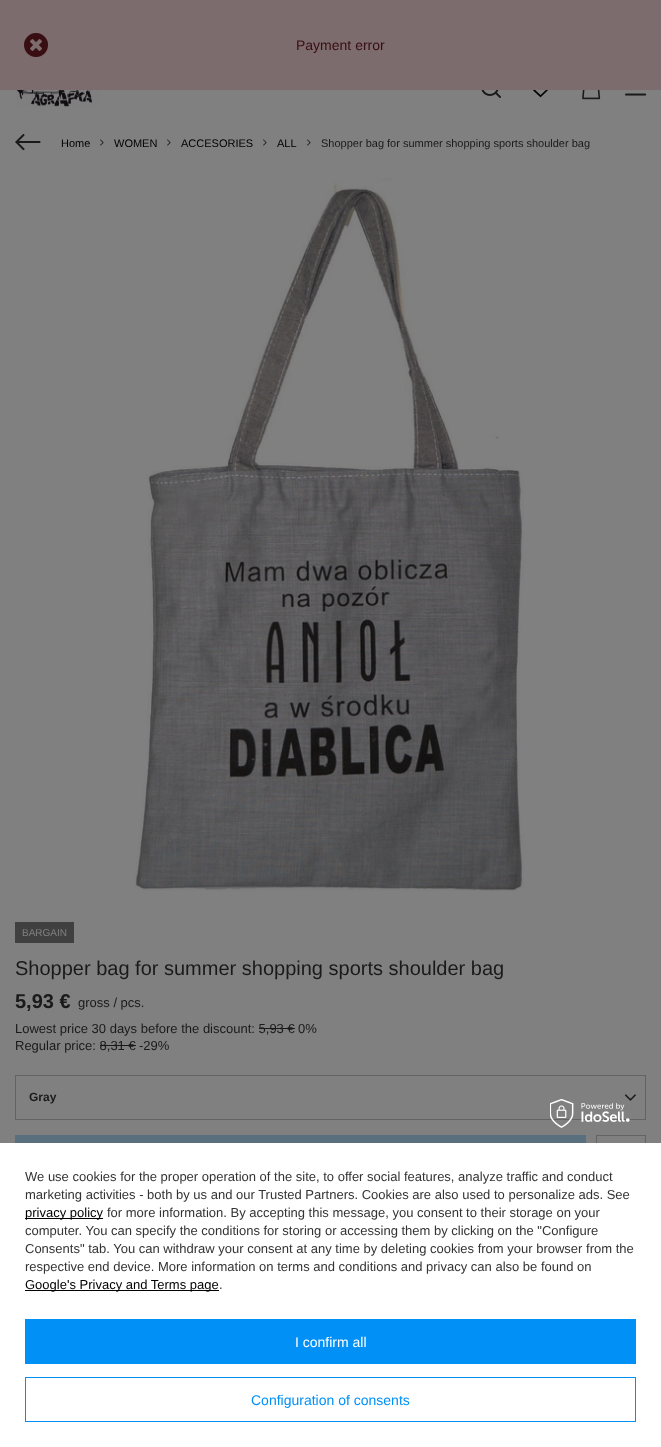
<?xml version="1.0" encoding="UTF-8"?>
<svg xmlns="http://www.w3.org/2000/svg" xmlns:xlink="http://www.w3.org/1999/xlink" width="661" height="1447">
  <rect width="100%" height="100%" fill="#808080" />
  <rect width="661" height="90" fill="#7c6c6d" />
  <image x="24" y="33" width="24" height="24" xlink:href="image1.png" />
  <image x="15" y="90" width="87" height="17" xlink:href="image2.png" />
  <image x="481" y="90" width="20" height="8" xlink:href="image3.png" />
  <image x="533" y="90" width="15" height="8" xlink:href="image4.png" />
  <image x="582" y="90" width="19" height="10" xlink:href="image5.png" />
  <image x="625" y="93" width="22" height="3" xlink:href="image6.png" />
  <image x="15" y="134" width="26" height="17" xlink:href="image7.png" />
  <image x="100" y="139" width="4" height="7" xlink:href="image8.png" />
  <image x="167" y="139" width="4" height="7" xlink:href="image8.png" />
  <image x="263" y="139" width="4" height="7" xlink:href="image8.png" />
  <image x="307" y="139" width="4" height="7" xlink:href="image8.png" />
  <image x="135" y="178" width="389" height="713" xlink:href="image9.png" />
  <rect x="15" y="922" width="59" height="21" fill="#404040" />
  <rect x="259" y="1028" width="36" height="1" fill="#1a1a1a" />
  <rect x="100" y="1045" width="36" height="1" fill="#1a1a1a" />
  <rect x="15.5" y="1075.5" width="630" height="44" fill="none" stroke="#626464" />
  <image x="624" y="1094" width="12" height="7" xlink:href="image10.png" />
  <rect x="15" y="1135" width="571" height="8" fill="#5a6f7e" />
  <rect x="596.5" y="1135.5" width="49" height="49" fill="none" stroke="#626464" />
  <rect y="1143" width="661" height="304" fill="#ffffff" />
  <image x="550" y="1099" width="80" height="29" xlink:href="image11.png" />
  <rect x="25" y="1218" width="78" height="1" fill="#000000" />
  <rect x="25" y="1290" width="194" height="1" fill="#000000" />
  <rect x="25" y="1319" width="611" height="45" fill="#0090f6" />
  <rect x="25.5" y="1377.5" width="610" height="44" fill="none" stroke="#0090f6" />
  <text x="296" y="50" style="font-family: Liberation Sans; font-size: 14px; fill: #390e12">Payment error</text>
  <text x="61" y="147" style="font-family: Liberation Sans; font-size: 11px; fill: #000000">Home</text>
  <text x="114" y="147" style="font-family: Liberation Sans; font-size: 11px; fill: #000000">WOMEN</text>
  <text x="181" y="147" style="font-family: Liberation Sans; font-size: 11px; fill: #000000">ACCESORIES</text>
  <text x="277" y="147" style="font-family: Liberation Sans; font-size: 11px; fill: #000000">ALL</text>
  <text x="321" y="147" style="font-family: Liberation Sans; font-size: 11px; fill: #1a1a1a">Shopper bag for summer shopping sports shoulder bag</text>
  <text x="22" y="936" style="font-family: Liberation Sans; font-size: 10px; fill: #808080">BARGAIN</text>
  <text x="15" y="975" style="font-family: Liberation Sans; font-size: 20px; fill: #1a1a1a">Shopper bag for summer shopping sports shoulder bag</text>
  <text x="15" y="1008" style="font-family: Liberation Sans; font-size: 20px; font-weight: bold; fill: #1a1a1a">5,93 €</text>
  <text x="78" y="1007" style="font-family: Liberation Sans; font-size: 13px; fill: #1a1a1a">gross / pcs.</text>
  <text x="15" y="1033" style="font-family: Liberation Sans; font-size: 13px; fill: #1a1a1a">Lowest price 30 days before the discount: 5,93 €</text>
  <text x="298" y="1033" style="font-family: Liberation Sans; font-size: 13px; fill: #1a1a1a">0%</text>
  <text x="15" y="1050" style="font-family: Liberation Sans; font-size: 13px; fill: #1a1a1a">Regular price: 8,31 €</text>
  <text x="139" y="1050" style="font-family: Liberation Sans; font-size: 13px; fill: #1a1a1a">-29%</text>
  <text x="29" y="1101" style="font-family: Liberation Sans; font-size: 12px; font-weight: bold; fill: #1a1a1a">Gray</text>
  <text x="25" y="1181" style="font-family: Liberation Sans; font-size: 13px; fill: #333333">We use cookies for the proper operation of the site, to offer social features, analyze traffic and conduct</text>
  <text x="25" y="1199" style="font-family: Liberation Sans; font-size: 13px; fill: #333333">marketing activities - both by us and our Trusted Partners. Cookies are also used to personalize ads. See</text>
  <text x="25" y="1217" style="font-family: Liberation Sans; font-size: 13px; fill: #000000">privacy policy</text>
  <text x="107" y="1217" style="font-family: Liberation Sans; font-size: 13px; fill: #333333">for more information. By accepting this message, you consent to their storage on your</text>
  <text x="25" y="1235" style="font-family: Liberation Sans; font-size: 13px; fill: #333333">computer. You can specify the conditions for storing or accessing them by clicking on the "Configure</text>
  <text x="25" y="1253" style="font-family: Liberation Sans; font-size: 13px; fill: #333333">Consents" tab. You can withdraw your consent at any time by deleting cookies from your browser from the</text>
  <text x="25" y="1271" style="font-family: Liberation Sans; font-size: 13px; fill: #333333">respective end device. More information on terms and conditions and privacy can also be found on</text>
  <text x="25" y="1289" style="font-family: Liberation Sans; font-size: 13px; fill: #000000">Google's Privacy and Terms page</text>
  <text x="219" y="1289" style="font-family: Liberation Sans; font-size: 13px; fill: #333333">.</text>
  <text x="295" y="1347" style="font-family: Liberation Sans; font-size: 14px; fill: #ffffff">I confirm all</text>
  <text x="251" y="1405" style="font-family: Liberation Sans; font-size: 14px; fill: #0090f6">Configuration of consents</text>
</svg>
